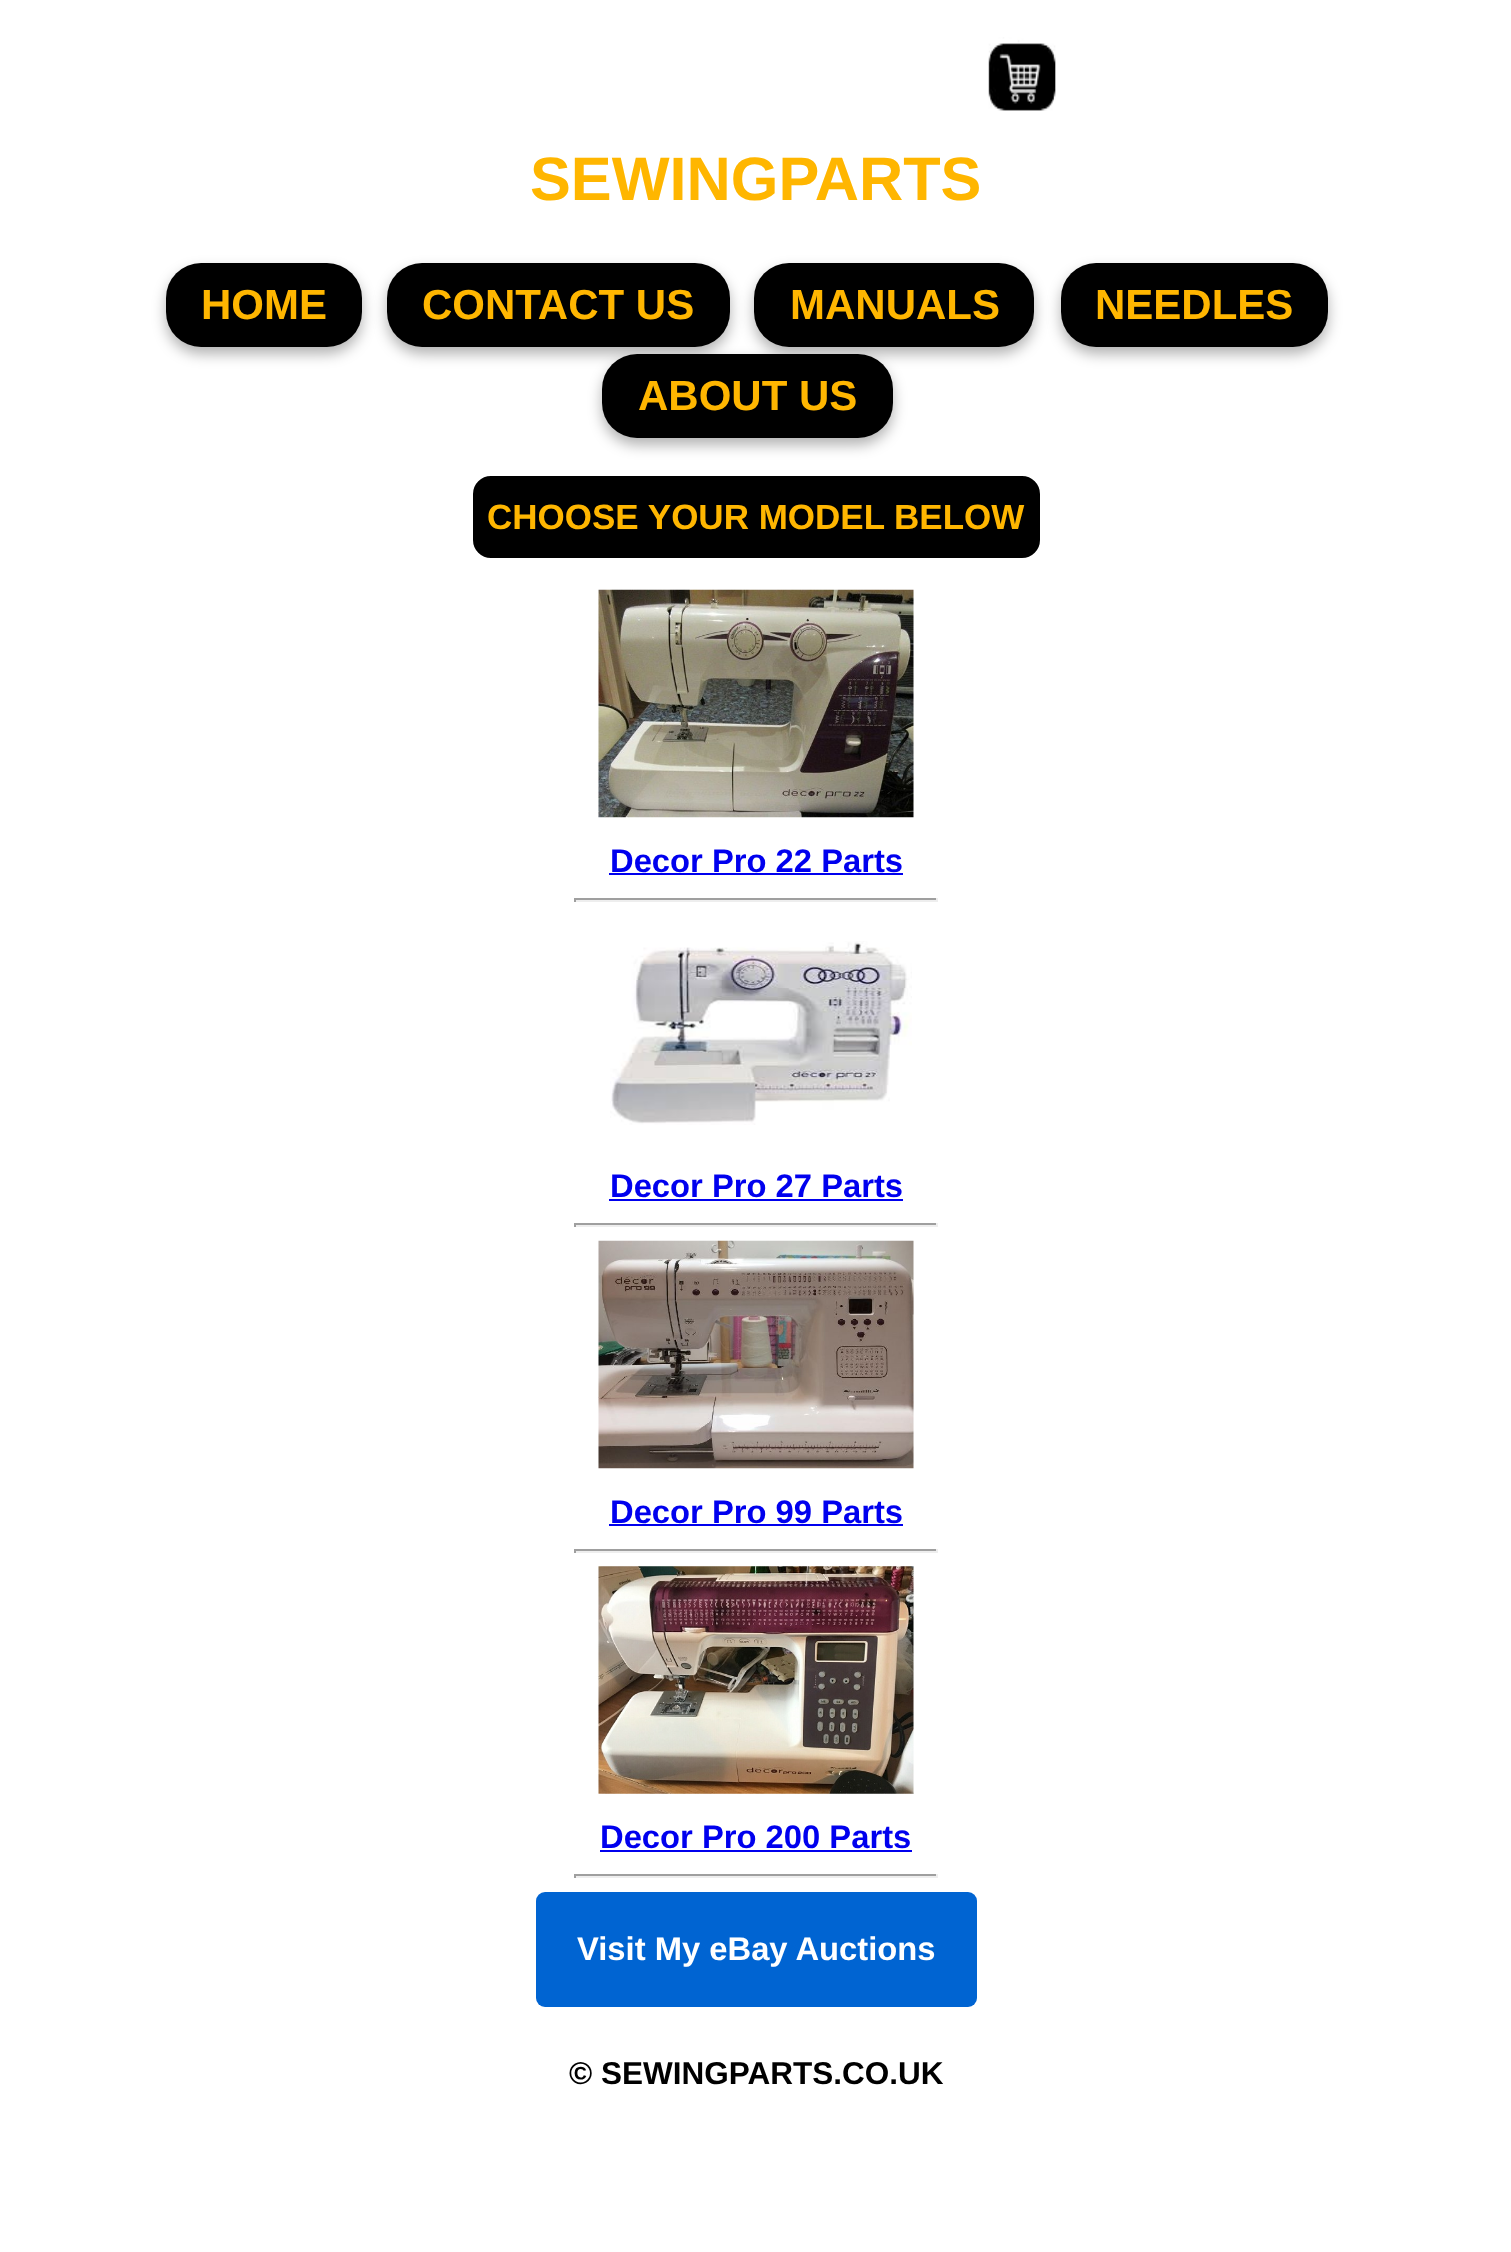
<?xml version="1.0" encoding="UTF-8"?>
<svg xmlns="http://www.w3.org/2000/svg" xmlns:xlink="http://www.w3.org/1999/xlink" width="1511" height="2252">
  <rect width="100%" height="100%" fill="#ffffff" />
  <image x="988" y="37" width="68" height="74" xlink:href="image1.png" />
  <rect x="166" y="270" width="196" height="84" rx="35" fill="#000000" fill-opacity="0.3" filter="blur(7px)" />
  <rect x="166" y="263" width="196" height="84" rx="35" fill="#000000" />
  <rect x="387" y="270" width="343" height="84" rx="35" fill="#000000" fill-opacity="0.3" filter="blur(7px)" />
  <rect x="387" y="263" width="343" height="84" rx="35" fill="#000000" />
  <rect x="754" y="270" width="280" height="84" rx="35" fill="#000000" fill-opacity="0.3" filter="blur(7px)" />
  <rect x="754" y="263" width="280" height="84" rx="35" fill="#000000" />
  <rect x="1061" y="270" width="267" height="84" rx="35" fill="#000000" fill-opacity="0.3" filter="blur(7px)" />
  <rect x="1061" y="263" width="267" height="84" rx="35" fill="#000000" />
  <rect x="602" y="361" width="291" height="84" rx="35" fill="#000000" fill-opacity="0.3" filter="blur(7px)" />
  <rect x="602" y="354" width="291" height="84" rx="35" fill="#000000" />
  <rect x="475" y="478" width="563" height="78" rx="16" fill="#000000" stroke="#000000" stroke-width="4" />
  <image x="598" y="589" width="316" height="229" xlink:href="image2.png" />
  <rect x="609" y="873" width="294" height="2" fill="#0000ee" />
  <rect x="574" y="898" width="364" height="2" fill="#9f9f9f" />
  <rect x="936" y="898" width="2" height="4" fill="#eeeeee" />
  <rect x="574" y="900" width="364" height="2" fill="#eeeeee" />
  <rect x="574" y="898" width="2" height="4" fill="#9f9f9f" />
  <image x="610" y="941" width="302" height="184" xlink:href="image3.png" />
  <rect x="609" y="1199" width="294" height="2" fill="#0000ee" />
  <rect x="574" y="1223" width="364" height="2" fill="#9f9f9f" />
  <rect x="936" y="1223" width="2" height="4" fill="#eeeeee" />
  <rect x="574" y="1225" width="364" height="2" fill="#eeeeee" />
  <rect x="574" y="1223" width="2" height="4" fill="#9f9f9f" />
  <image x="598" y="1240" width="316" height="229" xlink:href="image4.png" />
  <rect x="609" y="1524" width="294" height="2" fill="#0000ee" />
  <rect x="574" y="1549" width="364" height="2" fill="#9f9f9f" />
  <rect x="936" y="1549" width="2" height="4" fill="#eeeeee" />
  <rect x="574" y="1551" width="364" height="2" fill="#eeeeee" />
  <rect x="574" y="1549" width="2" height="4" fill="#9f9f9f" />
  <image x="598" y="1566" width="316" height="228" xlink:href="image5.png" />
  <rect x="600" y="1850" width="312" height="2" fill="#0000ee" />
  <rect x="574" y="1874" width="364" height="2" fill="#9f9f9f" />
  <rect x="936" y="1874" width="2" height="4" fill="#eeeeee" />
  <rect x="574" y="1876" width="364" height="2" fill="#eeeeee" />
  <rect x="574" y="1874" width="2" height="4" fill="#9f9f9f" />
  <rect x="536" y="1892" width="441" height="115" rx="9" fill="#0064d2" />
  <text x="530" y="200" style="font-family: Liberation Sans; font-size: 61.25px; font-weight: bold; fill: #ffb600">SEWINGPARTS</text>
  <text x="201" y="319" style="font-family: Liberation Sans; font-size: 42px; font-weight: bold; fill: #ffb600">HOME</text>
  <text x="422" y="319" style="font-family: Liberation Sans; font-size: 42px; font-weight: bold; fill: #ffb600">CONTACT US</text>
  <text x="790" y="319" style="font-family: Liberation Sans; font-size: 42px; font-weight: bold; fill: #ffb600">MANUALS</text>
  <text x="1095" y="319" style="font-family: Liberation Sans; font-size: 42px; font-weight: bold; fill: #ffb600">NEEDLES</text>
  <text x="638" y="410" style="font-family: Liberation Sans; font-size: 42px; font-weight: bold; fill: #ffb600">ABOUT US</text>
  <text x="487" y="529" style="font-family: Liberation Sans; font-size: 35px; font-weight: bold; fill: #ffb600">CHOOSE YOUR MODEL BELOW</text>
  <text x="610" y="872" style="font-family: Liberation Sans; font-size: 32.75px; font-weight: bold; fill: #0000ee">Decor Pro 22 Parts</text>
  <text x="610" y="1197" style="font-family: Liberation Sans; font-size: 32.75px; font-weight: bold; fill: #0000ee">Decor Pro 27 Parts</text>
  <text x="610" y="1523" style="font-family: Liberation Sans; font-size: 32.75px; font-weight: bold; fill: #0000ee">Decor Pro 99 Parts</text>
  <text x="600" y="1848" style="font-family: Liberation Sans; font-size: 32.75px; font-weight: bold; fill: #0000ee">Decor Pro 200 Parts</text>
  <text x="577" y="1960" style="font-family: Liberation Sans; font-size: 32.75px; font-weight: bold; fill: #ffffff">Visit My eBay Auctions</text>
  <text x="569" y="2084" style="font-family: Liberation Sans; font-size: 31.5px; font-weight: bold; fill: #000000">© SEWINGPARTS.CO.UK</text>
</svg>
